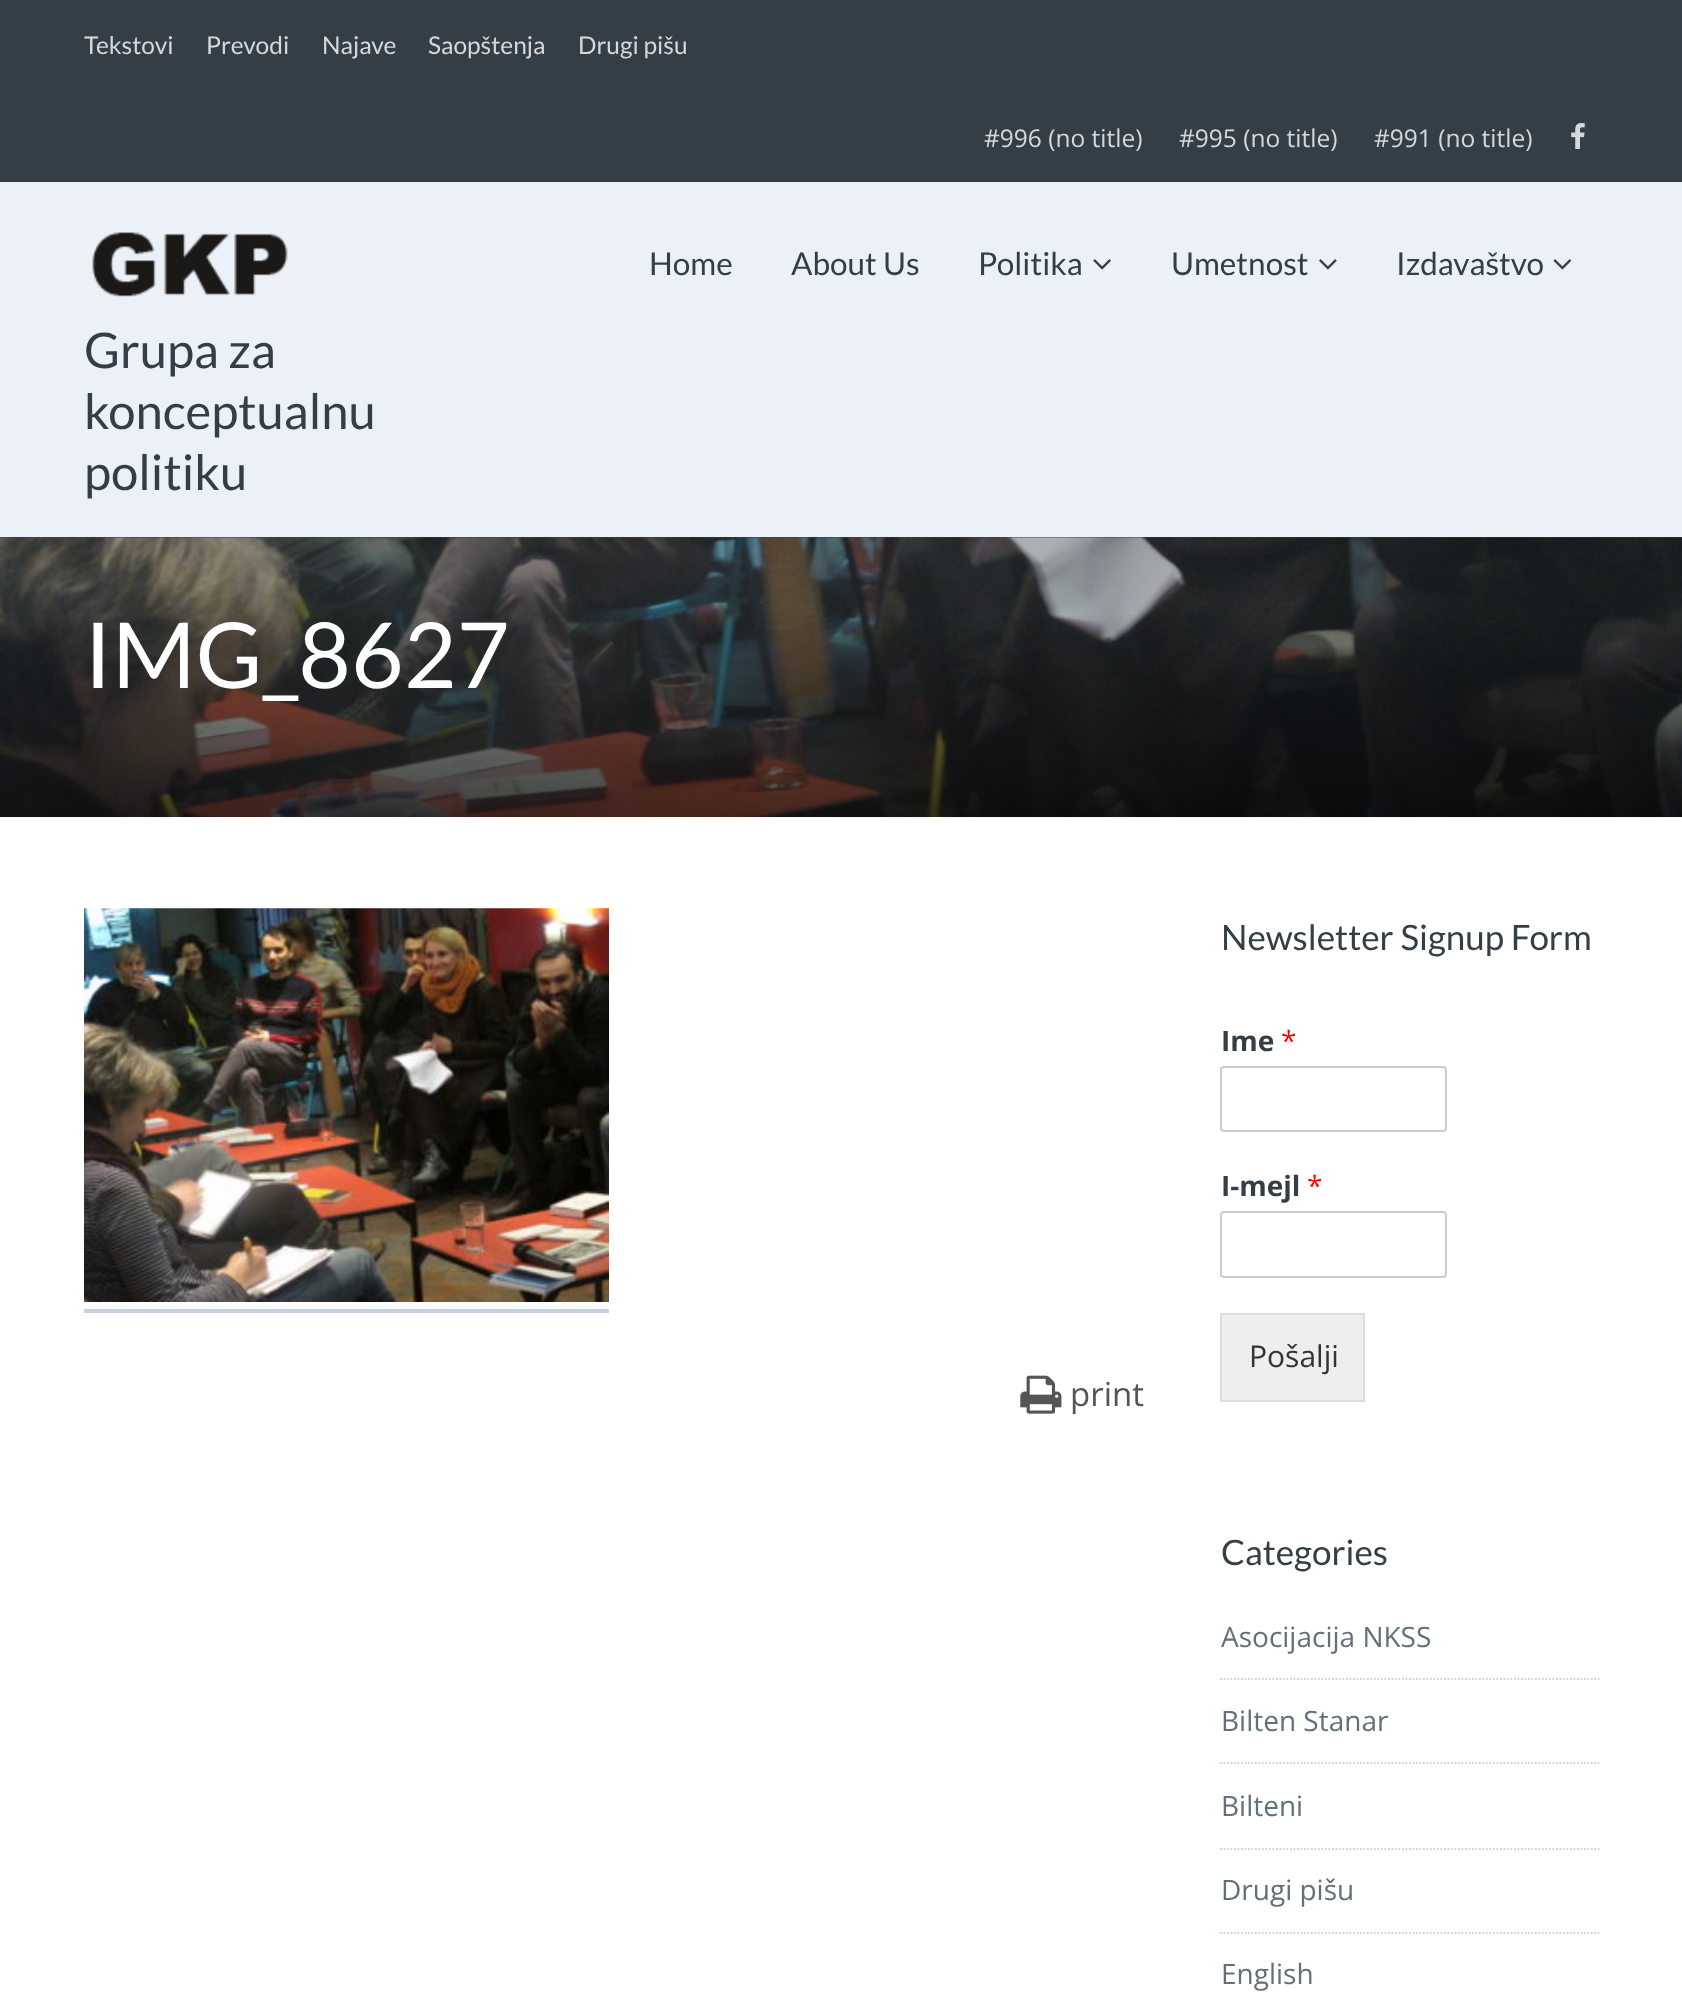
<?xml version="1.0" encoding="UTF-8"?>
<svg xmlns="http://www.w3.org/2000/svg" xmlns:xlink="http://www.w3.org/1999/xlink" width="1682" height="2015">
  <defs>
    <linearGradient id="g1" gradientUnits="userSpaceOnUse" x1="842" y1="537" x2="842" y2="817"><stop offset="0.25" stop-color="#000000" stop-opacity="0" /><stop offset="1" stop-color="#000000" stop-opacity="0.6" /></linearGradient>
  </defs>
  <rect width="100%" height="100%" fill="#ffffff" />
  <rect width="1682" height="182" fill="#343e47" />
  <image x="1571" y="123" width="14" height="26" xlink:href="image1.png" />
  <rect y="182" width="1682" height="355" fill="#ecf1f7" />
  <image x="1093" y="259" width="18" height="11" xlink:href="image2.png" />
  <image x="1319" y="259" width="18" height="11" xlink:href="image3.png" />
  <image x="1553" y="259" width="19" height="11" xlink:href="image4.png" />
  <image x="92" y="232" width="196" height="65" xlink:href="image5.png" />
  <rect y="537" width="1682" height="280" fill="#343e47" />
  <image x="0" y="537" width="1682" height="281" xlink:href="image6.png" />
  <rect y="615" width="1682" height="202" fill="url(#g1)" />
  <image x="84" y="908" width="525" height="394" xlink:href="image7.png" />
  <rect x="84" y="1309" width="525" height="4" fill="#c4d1e0" />
  <image x="1020" y="1375" width="42" height="39" xlink:href="image8.png" />
  <rect x="1221" y="1067" width="225" height="64" rx="3" fill="none" stroke="#cccccc" stroke-width="2" />
  <rect x="1221" y="1212" width="225" height="65" rx="3" fill="none" stroke="#cccccc" stroke-width="2" />
  <rect x="1221" y="1314" width="143" height="87" fill="#eeeeee" stroke="#dddddd" stroke-width="2" />
  <path d="M 1220 1679 h 379.5" fill="none" stroke="#c7d6e4" stroke-width="1.8" stroke-dasharray="1.75 1.75" />
  <path d="M 1220 1763 h 379.5" fill="none" stroke="#c7d6e4" stroke-width="1.8" stroke-dasharray="1.75 1.75" />
  <path d="M 1220 1849 h 379.5" fill="none" stroke="#c7d6e4" stroke-width="1.8" stroke-dasharray="1.75 1.75" />
  <path d="M 1220 1933 h 379.5" fill="none" stroke="#c7d6e4" stroke-width="1.8" stroke-dasharray="1.75 1.75" />
  <text x="84" y="54" style="font-family: Lato; font-size: 24.5px; fill: #d6d8da">Tekstovi</text>
  <text x="206" y="54" style="font-family: Lato; font-size: 24.5px; fill: #d6d8da">Prevodi</text>
  <text x="322" y="54" style="font-family: Lato; font-size: 24.5px; fill: #d6d8da">Najave</text>
  <text x="428" y="54" style="font-family: Lato; font-size: 24.5px; fill: #d6d8da">Saopštenja</text>
  <text x="578" y="54" style="font-family: Lato; font-size: 24.5px; fill: #d6d8da">Drugi pišu</text>
  <text x="984" y="147" style="font-family: Open Sans; font-size: 24.5px; fill: #d6d8da">#996 (no title)</text>
  <text x="1179" y="147" style="font-family: Open Sans; font-size: 24.5px; fill: #d6d8da">#995 (no title)</text>
  <text x="1374" y="147" style="font-family: Open Sans; font-size: 24.5px; fill: #d6d8da">#991 (no title)</text>
  <text x="649" y="275" style="font-family: Lato; font-size: 31.5px; fill: #343e47">Home</text>
  <text x="791" y="275" style="font-family: Lato; font-size: 31.5px; fill: #343e47">About Us</text>
  <text x="978" y="275" style="font-family: Lato; font-size: 31.5px; fill: #343e47">Politika</text>
  <text x="1171" y="275" style="font-family: Lato; font-size: 31.5px; fill: #343e47">Umetnost</text>
  <text x="1396" y="275" style="font-family: Lato; font-size: 31.5px; fill: #343e47">Izdavaštvo</text>
  <text x="84" y="368" style="font-family: Lato; font-size: 49px; fill: #343e47">Grupa za</text>
  <text x="84" y="429" style="font-family: Lato; font-size: 49px; fill: #343e47">konceptualnu</text>
  <text x="84" y="490" style="font-family: Lato; font-size: 49px; fill: #343e47">politiku</text>
  <text x="84" y="688" style="font-family: Lato; font-size: 91px; fill: #ffffff">IMG_8627</text>
  <text x="1070" y="1406" style="font-family: Open Sans; font-size: 33px; fill: #555555">print</text>
  <text x="1221" y="950" style="font-family: Lato; font-size: 35px; fill: #343e47">Newsletter Signup Form</text>
  <text x="1221" y="1051" style="font-family: Open Sans; font-size: 28px; font-weight: bold; fill: #343e47">Ime</text>
  <text x="1281" y="1051" style="font-family: Open Sans; font-size: 28px; fill: #ff0000">*</text>
  <text x="1221" y="1196" style="font-family: Open Sans; font-size: 28px; font-weight: bold; fill: #343e47">I-mejl</text>
  <text x="1307" y="1196" style="font-family: Open Sans; font-size: 28px; fill: #ff0000">*</text>
  <text x="1249" y="1367" style="font-family: Open Sans; font-size: 30px; fill: #333333">Pošalji</text>
  <text x="1221" y="1565" style="font-family: Lato; font-size: 35px; fill: #343e47">Categories</text>
  <text x="1221" y="1647" style="font-family: Open Sans; font-size: 28px; fill: #62707c">Asocijacija NKSS</text>
  <text x="1221" y="1731" style="font-family: Open Sans; font-size: 28px; fill: #62707c">Bilten Stanar</text>
  <text x="1221" y="1816" style="font-family: Open Sans; font-size: 28px; fill: #62707c">Bilteni</text>
  <text x="1221" y="1900" style="font-family: Open Sans; font-size: 28px; fill: #62707c">Drugi pišu</text>
  <text x="1221" y="1984" style="font-family: Open Sans; font-size: 28px; fill: #62707c">English</text>
</svg>
